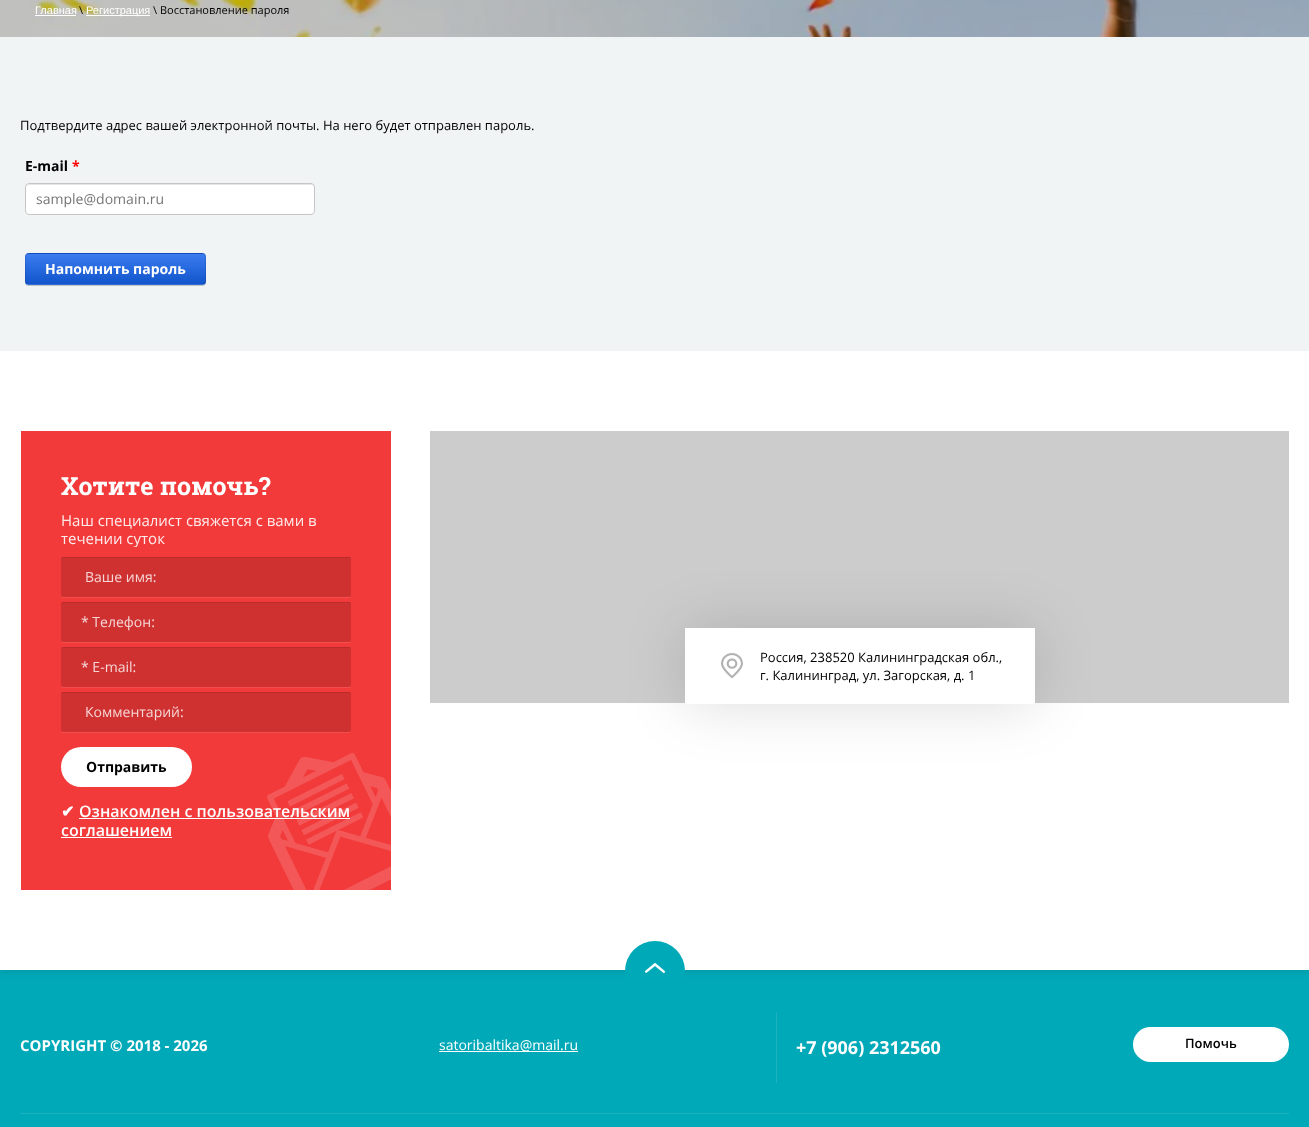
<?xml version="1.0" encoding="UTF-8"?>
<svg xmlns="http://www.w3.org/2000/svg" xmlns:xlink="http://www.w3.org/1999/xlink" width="1309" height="1127">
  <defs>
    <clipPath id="clip1"><rect x="25" y="253" width="181" height="32" rx="4" /></clipPath>
    <linearGradient id="g1" gradientUnits="userSpaceOnUse" x1="116" y1="224" x2="116" y2="254"><stop offset="0" stop-color="#3b7cef" /><stop offset="1" stop-color="#1155cc" /></linearGradient>
    <linearGradient id="g2" gradientUnits="userSpaceOnUse" x1="116" y1="254" x2="116" y2="284"><stop offset="0" stop-color="#3b7cef" /><stop offset="1" stop-color="#1155cc" /></linearGradient>
    <linearGradient id="g3" gradientUnits="userSpaceOnUse" x1="116" y1="284" x2="116" y2="314"><stop offset="0" stop-color="#3b7cef" /><stop offset="1" stop-color="#1155cc" /></linearGradient>
    <clipPath id="clip2"><rect x="61" y="511" width="290" height="36" /></clipPath>
  </defs>
  <rect width="100%" height="100%" fill="#00a9b8" />
  <image x="0" y="0" width="1309" height="37" xlink:href="image1.png" />
  <rect x="35" y="15" width="41" height="1" fill="#ffffff" />
  <rect x="86" y="15" width="64" height="1" fill="#ffffff" />
  <rect y="354" width="1309" height="619" fill="#000000" fill-opacity="0.08" filter="blur(3px)" />
  <rect y="37" width="1309" height="314" fill="#f0f4f5" />
  <rect x="25" y="183" width="290" height="32" rx="4" fill="#ffffff" />
  <path d="M 29 185 h 282 c 2 0 3 1 3 3 c 0 -2 -1 -4 -3 -4 h -282 c -2 0 -3 2 -3 4 c 0 -2 1 -3 3 -3 z" fill="#e6e6e6" />
  <rect x="25.5" y="183.5" width="289" height="31" rx="3.5" fill="none" stroke="#c5c5c5" />
  <rect x="25" y="254" width="181" height="32" rx="4" fill="#000000" fill-opacity="0.2" filter="blur(0.5px)" />
  <g clip-path="url(#clip1)">
    <rect x="25" y="253" width="181" height="1" fill="url(#g1)" />
    <rect x="25" y="254" width="181" height="30" fill="url(#g2)" />
    <rect x="25" y="284" width="181" height="1" fill="url(#g3)" />
  </g>
  <rect x="25.5" y="253.5" width="180" height="31" rx="3.5" fill="none" stroke="#000000" stroke-opacity="0.1" />
  <rect y="351" width="1309" height="619" fill="#ffffff" />
  <rect x="21" y="431" width="370" height="459" fill="#f23a3a" />
  <image x="267" y="753" width="124" height="137" xlink:href="image2.png" />
  <path d="M 61 595 c 0 1 0 3 2 3 h 287 l 1 -3 c 0 1 -1 2 -2 2 h -286 c -1 0 -2 -1 -2 -2 z" fill="#f34e4e" />
  <rect x="61" y="557" width="290" height="40" rx="2" fill="#000000" fill-opacity="0.14" />
  <path d="M 63 558 h 286 c 1 0 2 1 2 2 c 0 -1 0 -3 -2 -3 h -287 l -1 3 c 0 -1 1 -2 2 -2 z" fill="#000000" fill-opacity="0.1" />
  <path d="M 61 640 c 0 1 0 3 2 3 h 287 l 1 -3 c 0 1 -1 2 -2 2 h -286 c -1 0 -2 -1 -2 -2 z" fill="#f34e4e" />
  <rect x="61" y="602" width="290" height="40" rx="2" fill="#000000" fill-opacity="0.14" />
  <path d="M 63 603 h 286 c 1 0 2 1 2 2 c 0 -1 0 -3 -2 -3 h -287 l -1 3 c 0 -1 1 -2 2 -2 z" fill="#000000" fill-opacity="0.1" />
  <path d="M 61 685 c 0 1 0 3 2 3 h 287 l 1 -3 c 0 1 -1 2 -2 2 h -286 c -1 0 -2 -1 -2 -2 z" fill="#f34e4e" />
  <rect x="61" y="647" width="290" height="40" rx="2" fill="#000000" fill-opacity="0.14" />
  <path d="M 63 648 h 286 c 1 0 2 1 2 2 c 0 -1 0 -3 -2 -3 h -287 l -1 3 c 0 -1 1 -2 2 -2 z" fill="#000000" fill-opacity="0.1" />
  <path d="M 61 730 c 0 1 0 3 2 3 h 287 l 1 -3 c 0 1 -1 2 -2 2 h -286 c -1 0 -2 -1 -2 -2 z" fill="#f34e4e" />
  <rect x="61" y="692" width="290" height="40" rx="2" fill="#000000" fill-opacity="0.14" />
  <path d="M 63 693 h 286 c 1 0 2 1 2 2 c 0 -1 0 -3 -2 -3 h -287 l -1 3 c 0 -1 1 -2 2 -2 z" fill="#000000" fill-opacity="0.1" />
  <rect x="61" y="747" width="131" height="40" rx="20" fill="#ffffff" />
  <rect x="79" y="818" width="271" height="1" fill="#ffffff" />
  <rect x="61" y="837" width="111" height="1" fill="#ffffff" />
  <rect x="430" y="431" width="859" height="272" fill="#cccccc" />
  <rect x="685" y="628" width="350" height="76" fill="#000000" fill-opacity="0.14" filter="blur(29.5px)" />
  <rect x="685" y="628" width="350" height="76" fill="#ffffff" />
  <image x="721" y="653" width="22" height="25" xlink:href="image3.png" />
  <circle cx="655" cy="971" r="30" fill="#00a9b8" />
  <image x="645" y="963" width="20" height="10" xlink:href="image4.png" />
  <rect x="439" y="1051" width="139" height="1" fill="#ffffff" />
  <rect x="776" y="1012" width="1" height="71" fill="#1ab2bf" />
  <rect x="1133" y="1027" width="156" height="35" rx="17.5" fill="#ffffff" />
  <rect x="20" y="1113" width="1269" height="1" fill="#1ab2bf" />
  <text x="35" y="14" style="font-family: Liberation Sans; font-size: 11px; fill: #ffffff">Главная</text>
  <text x="79" y="14" style="font-family: Open Sans; font-size: 11px; fill: #000000">\</text>
  <text x="86" y="14" style="font-family: Liberation Sans; font-size: 11px; fill: #ffffff">Регистрация</text>
  <text x="153" y="14" style="font-family: Open Sans; font-size: 11px; fill: #000000">\ Восстановление пароля</text>
  <text x="20" y="130" style="font-family: Open Sans; font-size: 13px; fill: #000000">Подтвердите адрес вашей электронной почты. На него будет отправлен пароль.</text>
  <text x="25" y="171" style="font-family: Open Sans; font-size: 14px; font-weight: bold; fill: #000000">E-mail</text>
  <text x="72" y="171" style="font-family: Open Sans; font-size: 14px; font-weight: bold; fill: #ff0000">*</text>
  <text x="36" y="204" style="font-family: Open Sans; font-size: 14px; fill: #757575">sample@domain.ru</text>
  <text x="45" y="274" style="font-family: Open Sans; font-size: 14px; font-weight: bold; fill: #ffffff">Напомнить пароль</text>
  <text x="61" y="495" style="font-family: Roboto Slab; font-size: 25px; font-weight: bold; fill: #ffffff">Хотите помочь?</text>
  <text x="61" y="526" style="font-family: Open Sans; font-size: 15px; fill: #feebeb">Наш специалист свяжется с вами в</text>
  <g clip-path="url(#clip2)">
    <text x="61" y="544" style="font-family: Open Sans; font-size: 15px; fill: #feebeb">течении суток</text>
  </g>
  <text x="85" y="582" style="font-family: Open Sans; font-size: 14px; fill: #f6d6d6">Ваше имя:</text>
  <text x="81" y="627" style="font-family: Open Sans; font-size: 14px; fill: #f6d6d6">* Телефон:</text>
  <text x="81" y="672" style="font-family: Open Sans; font-size: 14px; fill: #f6d6d6">* E-mail:</text>
  <text x="85" y="717" style="font-family: Open Sans; font-size: 14px; fill: #f6d6d6">Комментарий:</text>
  <text x="86" y="772" style="font-family: Open Sans; font-size: 14px; font-weight: bold; fill: #000000">Отправить</text>
  <text x="61" y="817" style="font-family: DejaVu Sans; font-size: 16px; font-weight: bold; fill: #ffffff">✔</text>
  <text x="79" y="817" style="font-family: Open Sans; font-size: 16px; font-weight: 600; fill: #ffffff">Ознакомлен с пользовательским</text>
  <text x="61" y="836" style="font-family: Open Sans; font-size: 16px; font-weight: 600; fill: #ffffff">соглашением</text>
  <text x="760" y="662" style="font-family: Open Sans; font-size: 13px; fill: #000000">Россия, 238520 Калининградская обл.,</text>
  <text x="760" y="680" style="font-family: Open Sans; font-size: 13px; fill: #000000">г. Калининград, ул. Загорская, д. 1</text>
  <text x="20" y="1051" style="font-family: Open Sans; font-size: 15px; font-weight: bold; fill: #ffffff">COPYRIGHT © 2018 - 2026</text>
  <text x="439" y="1050" style="font-family: Open Sans; font-size: 14px; fill: #ffffff">satoribaltika@mail.ru</text>
  <text x="796" y="1054" style="font-family: Open Sans; font-size: 18px; font-weight: bold; fill: #ffffff">+7 (906) 2312560</text>
  <text x="1185" y="1048" style="font-family: Open Sans; font-size: 13px; font-weight: 600; fill: #000000">Помочь</text>
</svg>
